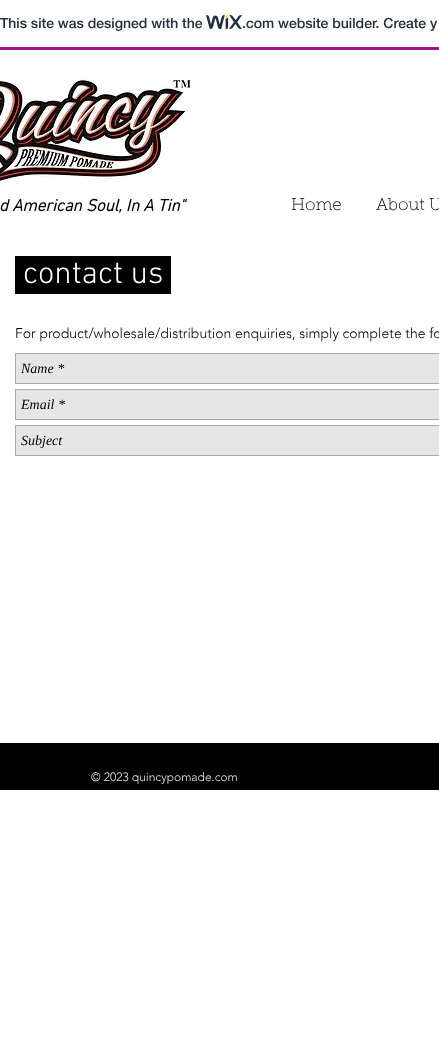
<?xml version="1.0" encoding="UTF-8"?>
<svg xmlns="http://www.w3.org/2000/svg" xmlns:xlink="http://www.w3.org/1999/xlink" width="439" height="1037">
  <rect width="100%" height="100%" fill="#ffffff" />
  <rect y="47" width="439" height="3" fill="#a0138e" />
  <image x="206" y="15" width="36" height="15" xlink:href="image1.png" />
  <image x="0" y="78" width="192" height="104" xlink:href="image2.png" />
  <rect x="15" y="256" width="156" height="38" fill="#000000" />
  <rect x="15.5" y="353.5" width="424" height="30" fill="#e6e6e6" stroke="#abaaaa" />
  <rect x="15.5" y="389.5" width="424" height="30" fill="#e6e6e6" stroke="#abaaaa" />
  <rect x="15.5" y="425.5" width="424" height="30" fill="#e6e6e6" stroke="#abaaaa" />
  <rect y="743" width="439" height="47" fill="#000000" />
  <text x="0" y="28" style="font-family: 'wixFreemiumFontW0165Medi'; font-size: 14px; font-weight: 500; fill: #20303c">This site was designed with the</text>
  <text x="242" y="28" style="font-family: 'wixFreemiumFontW0165Medi'; font-size: 14px; font-weight: 500; fill: #20303c">.com website builder. Create y</text>
  <text x="-1" y="211" style="font-family: 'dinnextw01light'; font-size: 17px; font-weight: bold; font-style: italic; fill: #000000">d American Soul, In A Tin"</text>
  <text x="291" y="210" style="font-family: 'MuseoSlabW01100'; font-size: 17px; font-weight: 100; fill: #000000">Home</text>
  <text x="376" y="210" style="font-family: 'MuseoSlabW01100'; font-size: 17px; font-weight: 100; fill: #000000">About U</text>
  <text x="23" y="283" style="font-family: 'dinnextw01light'; font-size: 32px; font-weight: 300; fill: #ffffff">contact us</text>
  <text x="15" y="338" style="font-family: 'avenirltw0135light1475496'; font-size: 14px; font-weight: 300; fill: #000000">For product/wholesale/distribution enquiries, simply complete the fo</text>
  <text x="21" y="373" style="font-family: Liberation Serif; font-size: 14px; font-style: italic; fill: #000000">Name *</text>
  <text x="21" y="409" style="font-family: Liberation Serif; font-size: 14px; font-style: italic; fill: #000000">Email *</text>
  <text x="21" y="445" style="font-family: Liberation Serif; font-size: 14px; font-style: italic; fill: #000000">Subject</text>
  <text x="91" y="781" style="font-family: 'avenirltw0135light1475496'; font-size: 12px; font-weight: 300; fill: #e6e6e6">© 2023 quincypomade.com</text>
</svg>
